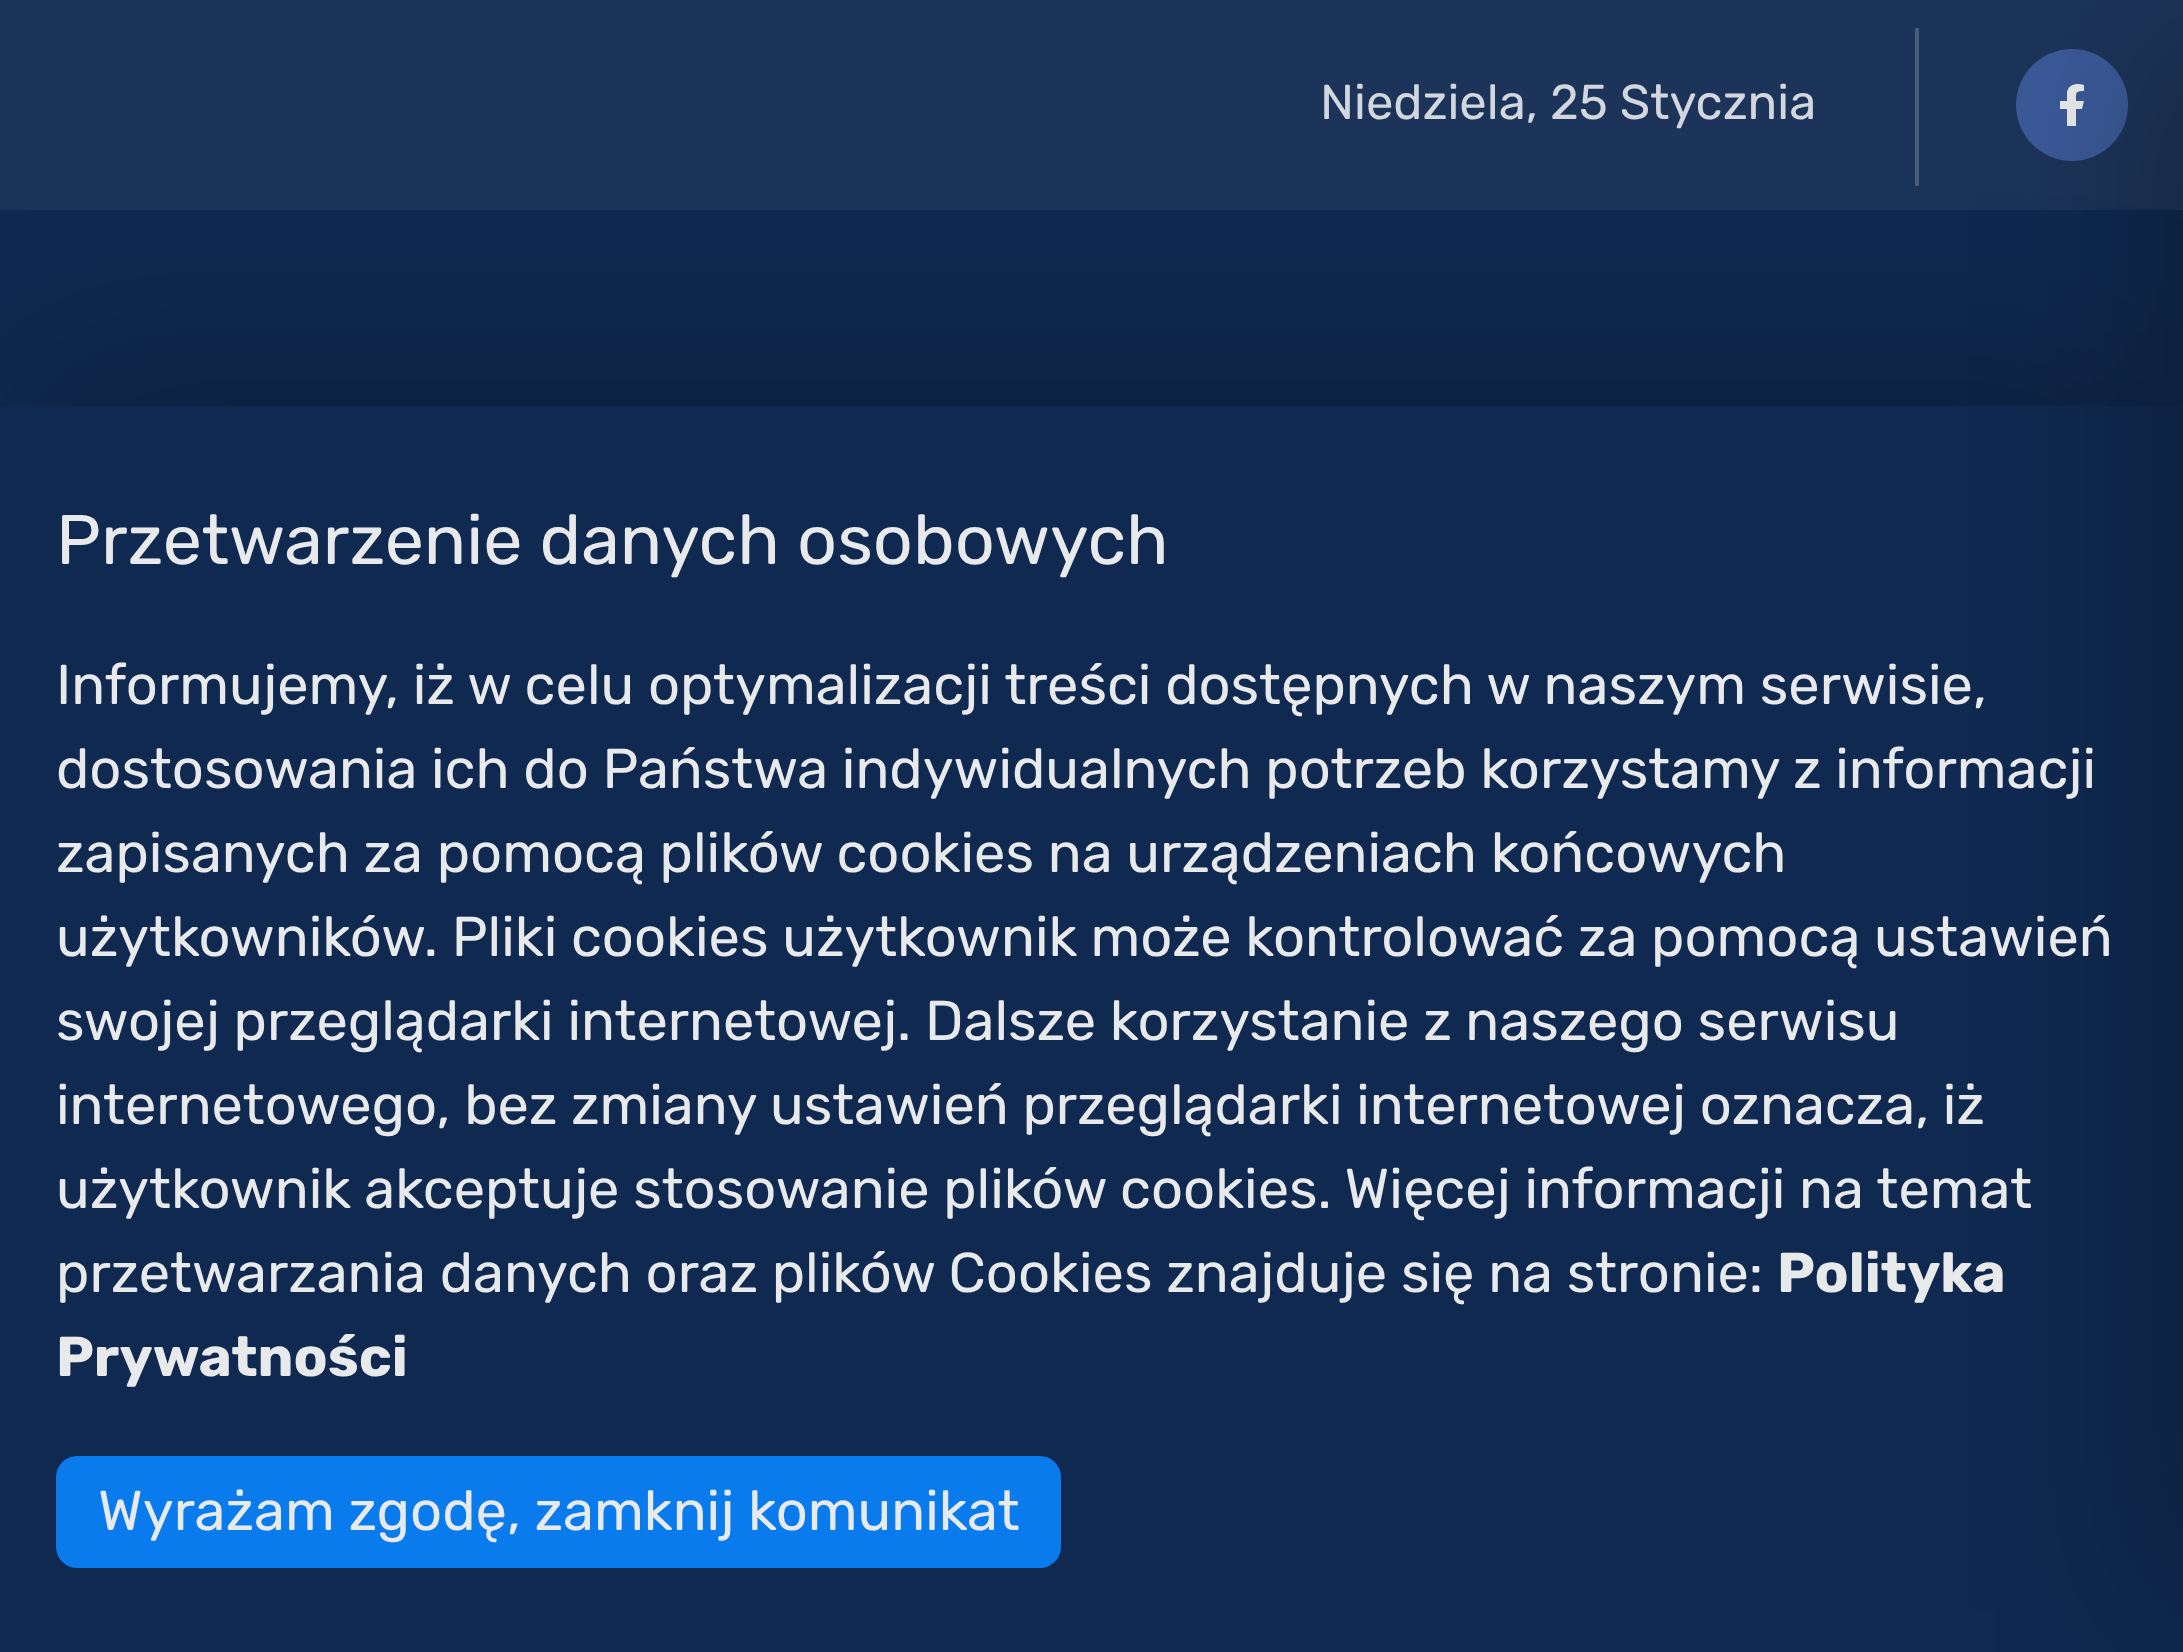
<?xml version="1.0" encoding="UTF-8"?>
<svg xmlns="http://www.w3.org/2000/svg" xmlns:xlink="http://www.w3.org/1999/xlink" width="2183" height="1652">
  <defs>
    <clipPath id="clip1"><rect x="2058" y="84" width="28" height="42" /></clipPath>
  </defs>
  <rect width="100%" height="100%" fill="#1c3459" />
  <rect x="1915" y="28" width="4" height="158" fill="#495d7a" />
  <circle cx="2072" cy="105" r="56" fill="#3b5998" />
  <g clip-path="url(#clip1)">
    <path d="M 2082 109 l 2 -8 h -8 c 0 -8 -1 -10 8 -10 v -6 c -7 -2 -15 -1 -17 7 v 9 h -7 v 8 h 7 v 20 h 9 v -20 z" fill="#e8e9eb" />
  </g>
  <rect y="210" width="2183" height="196" fill="#102950" />
  <rect x="42" y="378" width="2100" height="1162" fill="#000000" fill-opacity="0.25" filter="blur(87.5px)" />
  <rect y="406" width="2183" height="1246" fill="#102950" />
  <rect x="2156" y="42" width="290" height="1568" fill="#000000" fill-opacity="0.25" filter="blur(87.5px)" />
  <rect x="56" y="1456" width="1005" height="112" rx="21" fill="#097bed" />
  <text x="1320" y="119" style="font-family: Rubik; font-size: 49px; fill: #d2d6de">Niedziela, 25 Stycznia</text>
  <text x="56" y="564" style="font-family: Rubik; font-size: 70px; fill: #e8e9eb">Przetwarzenie danych osobowych</text>
  <text x="56" y="704" style="font-family: Rubik; font-size: 56px; fill: #e8e9eb">Informujemy, iż w celu optymalizacji treści dostępnych w naszym serwisie,</text>
  <text x="56" y="788" style="font-family: Rubik; font-size: 56px; fill: #e8e9eb">dostosowania ich do Państwa indywidualnych potrzeb korzystamy z informacji</text>
  <text x="56" y="872" style="font-family: Rubik; font-size: 56px; fill: #e8e9eb">zapisanych za pomocą plików cookies na urządzeniach końcowych</text>
  <text x="56" y="956" style="font-family: Rubik; font-size: 56px; fill: #e8e9eb">użytkowników. Pliki cookies użytkownik może kontrolować za pomocą ustawień</text>
  <text x="56" y="1040" style="font-family: Rubik; font-size: 56px; fill: #e8e9eb">swojej przeglądarki internetowej. Dalsze korzystanie z naszego serwisu</text>
  <text x="56" y="1124" style="font-family: Rubik; font-size: 56px; fill: #e8e9eb">internetowego, bez zmiany ustawień przeglądarki internetowej oznacza, iż</text>
  <text x="56" y="1208" style="font-family: Rubik; font-size: 56px; fill: #e8e9eb">użytkownik akceptuje stosowanie plików cookies. Więcej informacji na temat</text>
  <text x="56" y="1292" style="font-family: Rubik; font-size: 56px; fill: #e8e9eb">przetwarzania danych oraz plików Cookies znajduje się na stronie:</text>
  <text x="1777" y="1292" style="font-family: Rubik; font-size: 56px; font-weight: bold; fill: #e8e9eb">Polityka</text>
  <text x="56" y="1376" style="font-family: Rubik; font-size: 56px; font-weight: bold; fill: #e8e9eb">Prywatności</text>
  <text x="98" y="1530" style="font-family: Rubik; font-size: 56px; fill: #e8e9eb">Wyrażam zgodę, zamknij komunikat</text>
</svg>
